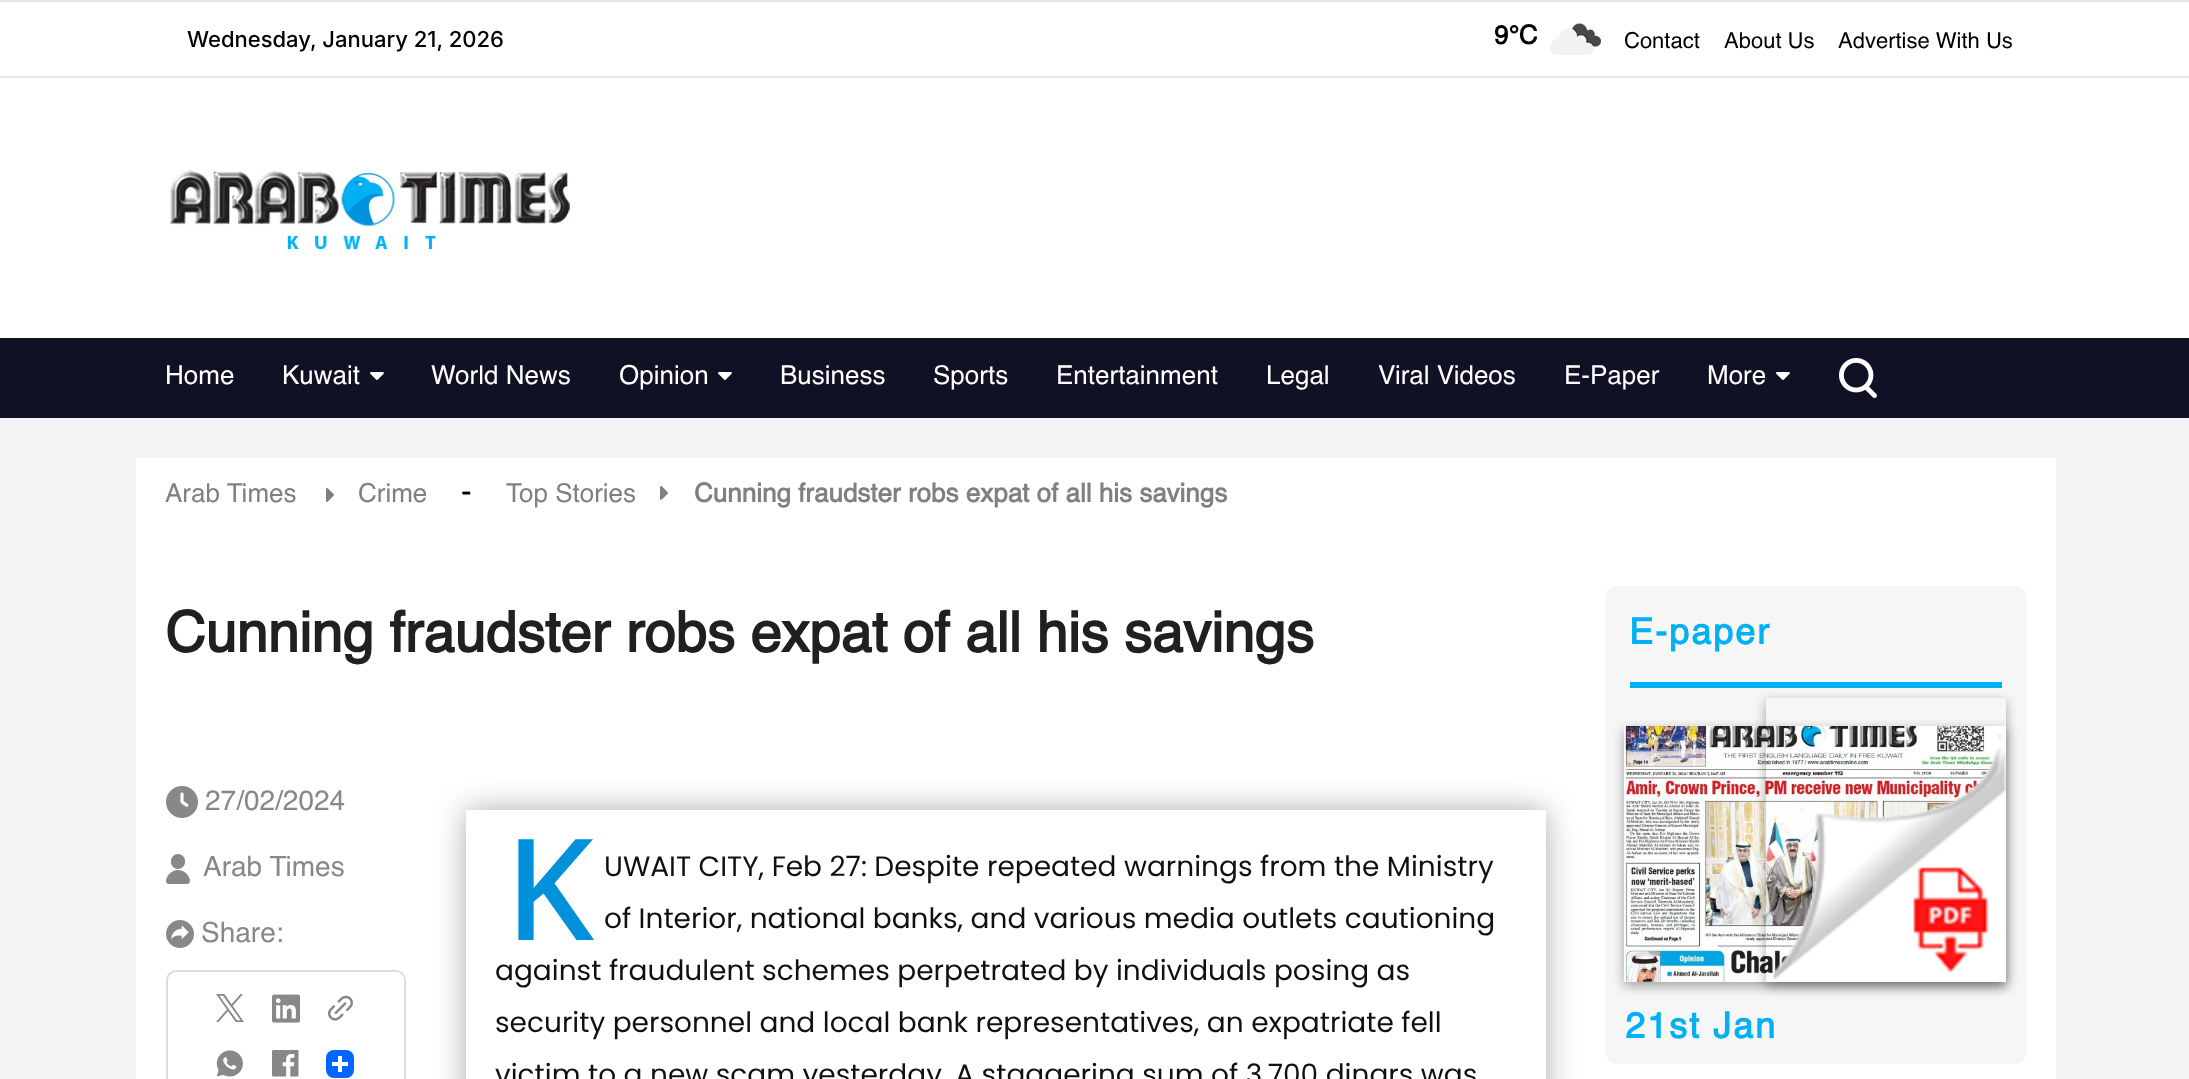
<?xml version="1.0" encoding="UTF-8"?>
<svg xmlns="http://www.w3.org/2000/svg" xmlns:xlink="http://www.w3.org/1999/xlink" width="2189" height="1079">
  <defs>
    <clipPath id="clip1"><path d="M 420 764 h 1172 v 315 h -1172 z m 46 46 h 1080 v 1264 h -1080 z" clip-rule="evenodd" /></clipPath>
    <clipPath id="clip2"><path d="M 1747 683 h 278 v 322 h -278 z m 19 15 h 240 v 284 h -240 z" clip-rule="evenodd" /></clipPath>
  </defs>
  <rect width="100%" height="100%" fill="#f3f3f3" />
  <rect y="2" width="2189" height="336" fill="#ffffff" />
  <rect width="2189" height="2" fill="#e6e6e6" />
  <rect y="76" width="2189" height="2" fill="#e6e6e6" />
  <image x="1550" y="23" width="51" height="32" xlink:href="image1.png" />
  <image x="170" y="170" width="400" height="80" xlink:href="image2.png" />
  <rect y="338" width="2189" height="80" fill="#101124" />
  <image x="370" y="372" width="14" height="8" xlink:href="image3.png" />
  <image x="718" y="372" width="14" height="8" xlink:href="image3.png" />
  <image x="1776" y="372" width="14" height="8" xlink:href="image3.png" />
  <image x="1839" y="358" width="38" height="40" xlink:href="image4.png" />
  <rect x="136" y="458" width="1920" height="621" fill="#ffffff" />
  <image x="326" y="488" width="8" height="14" xlink:href="image5.png" />
  <image x="660" y="486" width="8" height="14" xlink:href="image5.png" />
  <image x="166" y="786" width="32" height="32" xlink:href="image6.png" />
  <image x="166" y="854" width="24" height="30" xlink:href="image7.png" />
  <image x="166" y="920" width="28" height="28" xlink:href="image8.png" />
  <rect x="167" y="971" width="238" height="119" rx="9" fill="none" stroke="#dddddd" stroke-width="2" />
  <image x="216" y="994" width="28" height="28" xlink:href="image9.png" />
  <image x="272" y="994" width="28" height="29" xlink:href="image10.png" />
  <image x="328" y="995" width="25" height="26" xlink:href="image11.png" />
  <image x="216" y="1050" width="27" height="27" xlink:href="image12.png" />
  <image x="272" y="1050" width="27" height="27" xlink:href="image13.png" />
  <rect x="326" y="1050" width="28" height="28" rx="8" fill="#0166ff" />
  <rect x="338" y="1056" width="4" height="16" fill="#ffffff" />
  <rect x="332" y="1062" width="16" height="4" fill="#ffffff" />
  <g clip-path="url(#clip1)">
    <rect x="466" y="810" width="1080" height="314" fill="#ababab" filter="blur(15px)" />
  </g>
  <rect x="1606" y="586" width="420" height="478" rx="10" fill="#f6f6f6" />
  <rect x="1630" y="682" width="372" height="6" fill="#00b0f5" />
  <rect x="1624" y="730" width="382" height="256" fill="#000000" fill-opacity="0.35" filter="blur(6px)" />
  <image x="1624" y="726" width="382" height="256" xlink:href="image15.png" />
  <g clip-path="url(#clip2)">
    <rect x="1766" y="702" width="240" height="284" fill="#000000" fill-opacity="0.35" filter="blur(6px)" />
  </g>
  <image x="1773" y="734" width="233" height="248" xlink:href="image14.png" />
  <text x="187" y="47" style="font-family: Inter; font-size: 22px; font-weight: 500; fill: #000000">Wednesday, January 21, 2026</text>
  <text x="1494" y="44" style="font-family: Helvetica; font-size: 26px; font-weight: bold; fill: #000000">9°C</text>
  <text x="1624" y="48" style="font-family: Helvetica; font-size: 22px; fill: #000000">Contact</text>
  <text x="1724" y="48" style="font-family: Helvetica; font-size: 22px; fill: #000000">About Us</text>
  <text x="1838" y="48" style="font-family: Helvetica; font-size: 22px; fill: #000000">Advertise With Us</text>
  <text x="165" y="384" style="font-family: Helvetica; font-size: 26px; fill: #ffffff">Home</text>
  <text x="282" y="384" style="font-family: Helvetica; font-size: 26px; fill: #ffffff">Kuwait</text>
  <text x="431" y="384" style="font-family: Helvetica; font-size: 26px; fill: #ffffff">World News</text>
  <text x="619" y="384" style="font-family: Helvetica; font-size: 26px; fill: #ffffff">Opinion</text>
  <text x="780" y="384" style="font-family: Helvetica; font-size: 26px; fill: #ffffff">Business</text>
  <text x="933" y="384" style="font-family: Helvetica; font-size: 26px; fill: #ffffff">Sports</text>
  <text x="1056" y="384" style="font-family: Helvetica; font-size: 26px; fill: #ffffff">Entertainment</text>
  <text x="1266" y="384" style="font-family: Helvetica; font-size: 26px; fill: #ffffff">Legal</text>
  <text x="1378" y="384" style="font-family: Helvetica; font-size: 26px; fill: #ffffff">Viral Videos</text>
  <text x="1564" y="384" style="font-family: Helvetica; font-size: 26px; fill: #ffffff">E-Paper</text>
  <text x="1707" y="384" style="font-family: Helvetica; font-size: 26px; fill: #ffffff">More</text>
  <text x="165" y="502" style="font-family: Helvetica; font-size: 26px; fill: #808080">Arab Times</text>
  <text x="358" y="502" style="font-family: Helvetica; font-size: 26px; fill: #808080">Crime</text>
  <text x="461" y="502" style="font-family: Helvetica; font-size: 32px; fill: #000000">-</text>
  <text x="506" y="502" style="font-family: Helvetica; font-size: 26px; fill: #808080">Top Stories</text>
  <text x="694" y="502" style="font-family: Helvetica; font-size: 26px; font-weight: bold; fill: #808080">Cunning fraudster robs expat of all his savings</text>
  <text x="165" y="652" style="font-family: Helvetica; font-size: 56px; font-weight: bold; fill: #202020">Cunning fraudster robs expat of all his savings</text>
  <text x="205" y="810" style="font-family: Helvetica; font-size: 28px; fill: #888888">27/02/2024</text>
  <text x="203" y="876" style="font-family: Helvetica; font-size: 28px; fill: #888888">Arab Times</text>
  <text x="201" y="942" style="font-family: Helvetica; font-size: 28px; fill: #888888">Share:</text>
  <text x="505" y="940" style="font-family: Noto Sans; font-size: 141px; font-weight: 500; fill: #0091da">K</text>
  <text x="604" y="876" style="font-family: Poppins; font-size: 28px; fill: #101010">UWAIT CITY, Feb 27: Despite repeated warnings from the Ministry</text>
  <text x="604" y="928" style="font-family: Poppins; font-size: 28px; fill: #101010">of Interior, national banks, and various media outlets cautioning</text>
  <text x="495" y="980" style="font-family: Poppins; font-size: 28px; fill: #101010">against fraudulent schemes perpetrated by individuals posing as</text>
  <text x="495" y="1032" style="font-family: Poppins; font-size: 28px; fill: #101010">security personnel and local bank representatives, an expatriate fell</text>
  <text x="495" y="1084" style="font-family: Poppins; font-size: 28px; fill: #101010">victim to a new scam yesterday. A staggering sum of 3,700 dinars was</text>
  <text x="1629" y="644" style="font-family: Helvetica; font-size: 36px; font-weight: bold; letter-spacing: 2px; fill: #00b0f5">E-paper</text>
  <text x="1625" y="1038" style="font-family: Helvetica; font-size: 36px; font-weight: bold; letter-spacing: 2px; fill: #00b0f5">21st Jan</text>
</svg>
